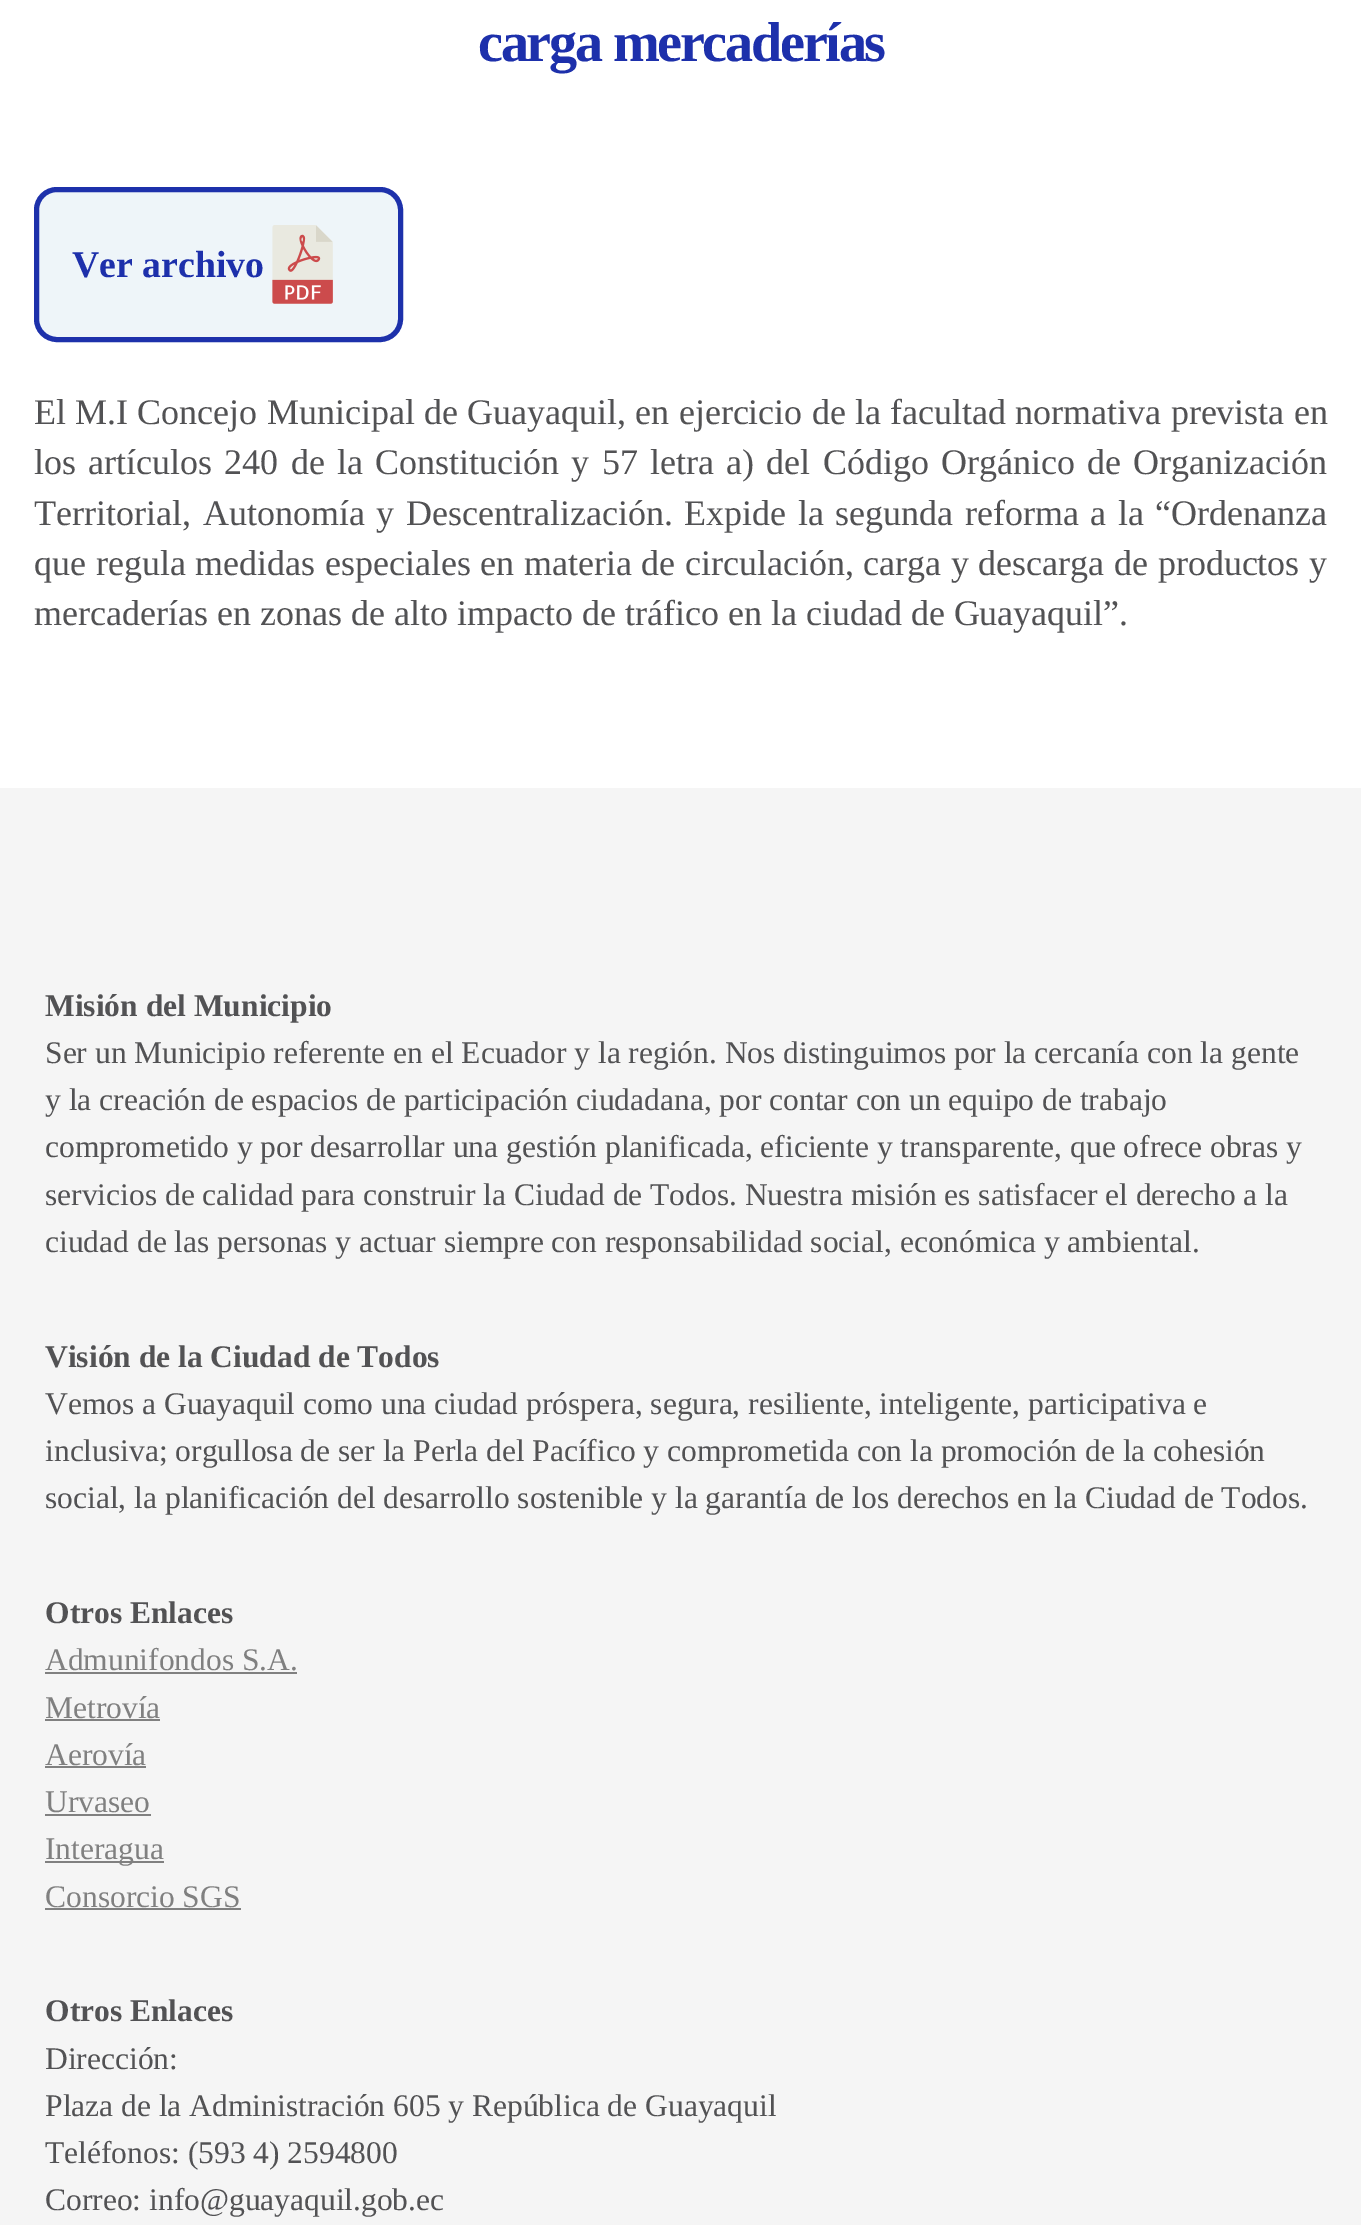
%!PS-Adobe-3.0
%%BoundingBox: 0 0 1361 2225
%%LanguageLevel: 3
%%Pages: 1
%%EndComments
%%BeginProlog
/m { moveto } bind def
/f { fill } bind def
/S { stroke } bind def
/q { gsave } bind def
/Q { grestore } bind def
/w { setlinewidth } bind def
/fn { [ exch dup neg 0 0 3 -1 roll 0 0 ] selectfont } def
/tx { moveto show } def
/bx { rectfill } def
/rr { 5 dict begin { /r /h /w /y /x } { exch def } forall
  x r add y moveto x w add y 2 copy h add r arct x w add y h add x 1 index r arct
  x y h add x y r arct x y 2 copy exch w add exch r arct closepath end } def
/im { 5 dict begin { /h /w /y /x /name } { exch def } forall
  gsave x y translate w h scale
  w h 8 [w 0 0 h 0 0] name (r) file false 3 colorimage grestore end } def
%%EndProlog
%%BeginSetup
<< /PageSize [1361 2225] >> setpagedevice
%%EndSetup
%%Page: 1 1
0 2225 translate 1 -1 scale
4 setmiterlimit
1 setgray
0 0 1361 2225 bx
/LiberationSerif-Bold 56.25 fn
0.114 0.188 0.671 setrgbcolor
478 61 m -2.3 0 (carga mercaderías) ashow
0.933 0.961 0.976 setrgbcolor
36.5 189.5 364 150 20.5 rr q f Q
0.114 0.192 0.671 setrgbcolor
5 w
S
/LiberationSerif-Bold 37.75 fn
0.114 0.188 0.671 setrgbcolor
(Ver archivo) 72 277 tx
(image0.raw) 272 225 61 79 im
/LiberationSerif-Regular 36 fn
0.322 0.322 0.329 setrgbcolor
34 424 m 0.25 0 32 (El M.I Concejo Municipal de Guayaquil, en ejercicio de la facultad normativa prevista en) widthshow
34 474 m 3.25 0 32 (los artículos 240 de la Constitución y 57 letra a\) del Código Orgánico de Organización) widthshow
34 525 m 2.6 0 32 (Territorial, Autonomía y Descentralización. Expide la segunda reforma a la “Ordenanza) widthshow
34 575 m 0.6 0 32 (que regula medidas especiales en materia de circulación, carga y descarga de productos y) widthshow
(mercaderías en zonas de alto impacto de tráfico en la ciudad de Guayaquil”.) 34 625 tx
0.961 setgray
0 788 1361 1437 bx
/LiberationSerif-Bold 31.5 fn
0.322 0.322 0.329 setrgbcolor
(Misión del Municipio) 45 1016 tx
/LiberationSerif-Regular 31.5 fn
(Ser un Municipio referente en el Ecuador y la región. Nos distinguimos por la cercanía con la gente) 45 1063 tx
(y la creación de espacios de participación ciudadana, por contar con un equipo de trabajo) 45 1110 tx
(comprometido y por desarrollar una gestión planificada, eficiente y transparente, que ofrece obras y) 45 1157 tx
(servicios de calidad para construir la Ciudad de Todos. Nuestra misión es satisfacer el derecho a la) 45 1205 tx
(ciudad de las personas y actuar siempre con responsabilidad social, económica y ambiental.) 45 1252 tx
/LiberationSerif-Bold 31.5 fn
(Visión de la Ciudad de Todos) 45 1367 tx
/LiberationSerif-Regular 31.5 fn
(Vemos a Guayaquil como una ciudad próspera, segura, resiliente, inteligente, participativa e) 45 1414 tx
(inclusiva; orgullosa de ser la Perla del Pacífico y comprometida con la promoción de la cohesión) 45 1461 tx
(social, la planificación del desarrollo sostenible y la garantía de los derechos en la Ciudad de Todos.) 45 1508 tx
/LiberationSerif-Bold 31.5 fn
(Otros Enlaces) 45 1623 tx
/LiberationSerif-Regular 31.5 fn
0.502 setgray
(Admunifondos S.A.) 45 1670 tx
45 1672 252 2 bx
(Metrovía) 45 1718 tx
45 1719 115 2 bx
(Aerovía) 45 1765 tx
45 1766 101 2 bx
(Urvaseo) 45 1812 tx
45 1814 106 2 bx
45 1861 119 2 bx
(Interagua) 45 1859 tx
(Consorcio SGS) 45 1907 tx
45 1908 196 2 bx
/LiberationSerif-Bold 31.5 fn
0.322 0.322 0.329 setrgbcolor
(Otros Enlaces) 45 2021 tx
/LiberationSerif-Regular 31.5 fn
(Dirección:) 45 2069 tx
(Plaza de la Administración 605 y República de Guayaquil) 45 2116 tx
(Teléfonos: \(593 4\) 2594800) 45 2163 tx
(Correo: info@guayaquil.gob.ec) 45 2210 tx
showpage
%%EOF
